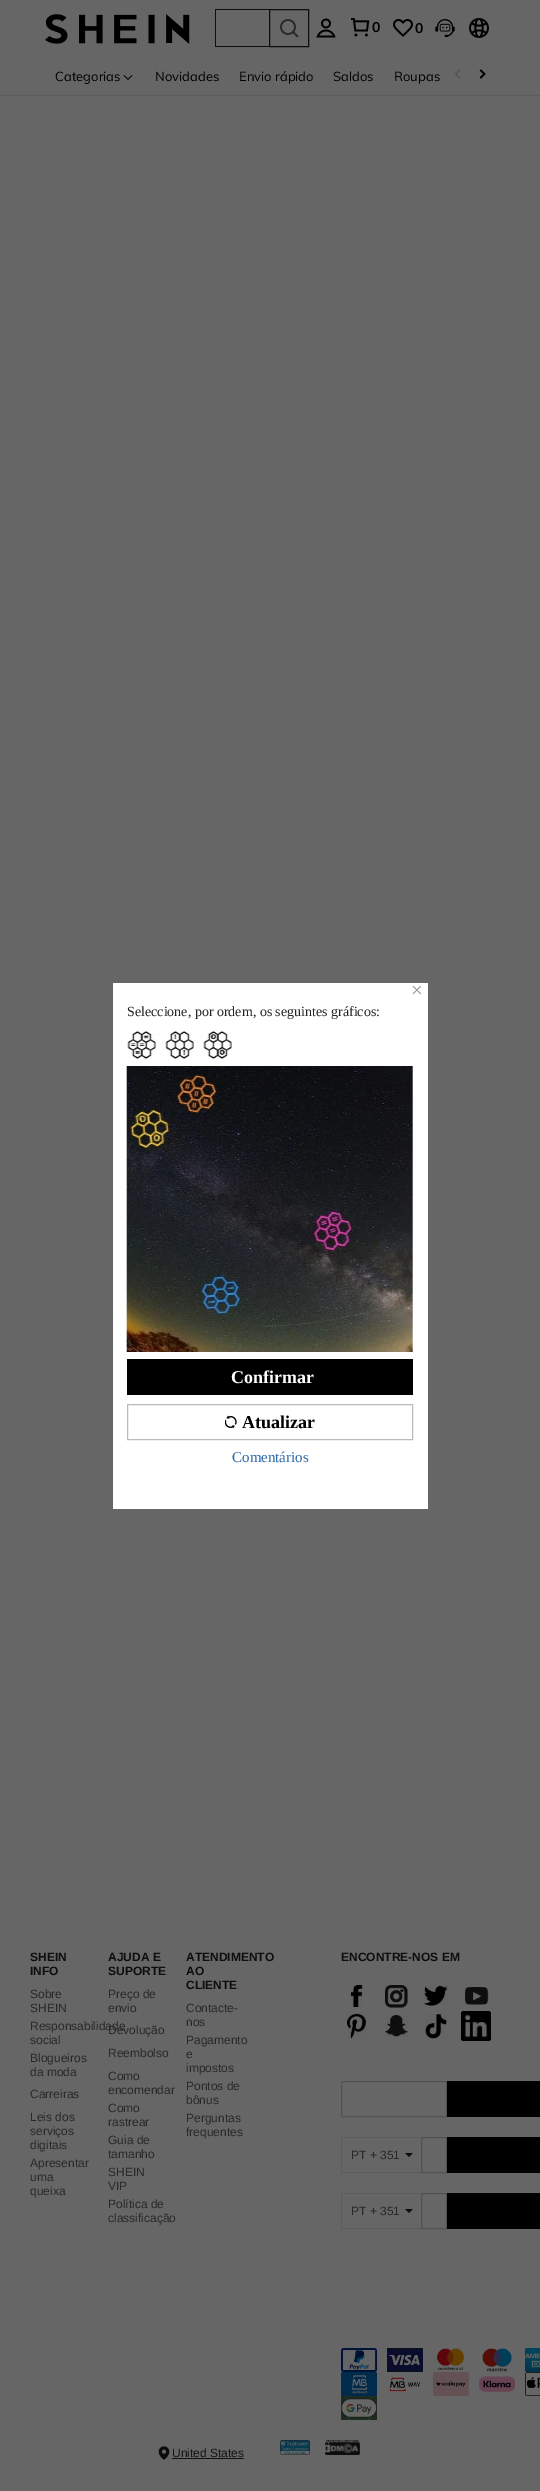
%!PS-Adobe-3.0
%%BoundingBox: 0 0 540 2491
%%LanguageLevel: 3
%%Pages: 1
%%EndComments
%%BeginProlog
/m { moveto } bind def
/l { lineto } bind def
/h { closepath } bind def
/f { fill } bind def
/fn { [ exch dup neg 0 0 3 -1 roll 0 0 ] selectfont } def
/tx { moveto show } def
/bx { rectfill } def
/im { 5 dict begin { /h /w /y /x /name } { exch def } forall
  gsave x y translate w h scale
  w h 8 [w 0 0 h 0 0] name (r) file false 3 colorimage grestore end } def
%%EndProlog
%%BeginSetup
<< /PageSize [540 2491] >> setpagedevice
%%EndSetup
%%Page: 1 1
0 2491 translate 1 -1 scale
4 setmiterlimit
0.4 setgray
0 0 540 2491 bx
(image0.raw) 45 14 145 30 im
0.055 setgray
215 9 54 1 bx
215 46 54 1 bx
215 9 1 38 bx
269.5 9.5 39 37 rectstroke
(image1.raw) 280 19 19 19 im
(image2.raw) 316 18 20 20 im
(image3.raw) 351 18 19 19 im
/Muli-Bold 14 fn
0 setgray
(0) 372 32 tx
(image4.raw) 393 19 20 18 im
(0) 415 33 tx
(image5.raw) 435 19 20 19 im
(image6.raw) 469 18 20 20 im
0.361 setgray
0 95 540 1 bx
/Muli-Regular 13 fn
0 setgray
(Categorias) 55 81 tx
(image7.raw) 123 75 10 5 im
(Novidades) 155 81 tx
(Envio rápido) 239 81 tx
(Saldos) 333 81 tx
(Roupas) 394 81 tx
(image8.raw) 454 69 7 10 im
(image9.raw) 479 69 7 10 im
/LiberationSans-Bold 12 fn
0.055 setgray
(SHEIN) 30 1961 tx
(INFO) 30 1975 tx
/LiberationSans-Regular 12 fn
0.161 setgray
(Sobre) 30 1998 tx
(SHEIN) 30 2012 tx
(Responsabilidade) 30 2030 tx
(social) 30 2044 tx
(Blogueiros) 30 2062 tx
(da moda) 30 2076 tx
(Carreiras) 30 2098 tx
(Leis dos) 30 2121 tx
(serviços) 30 2135 tx
(digitais) 30 2149 tx
(Apresentar) 30 2167 tx
(uma) 30 2181 tx
(queixa) 30 2195 tx
/LiberationSans-Bold 12 fn
0.055 setgray
(AJUDA E) 108 1961 tx
(SUPORTE) 108 1975 tx
/LiberationSans-Regular 12 fn
0.161 setgray
(Preço de) 108 1998 tx
(envio) 108 2012 tx
(Devolução) 108 2034 tx
(Reembolso) 108 2057 tx
(Como) 108 2080 tx
(encomendar) 108 2094 tx
(Como) 108 2112 tx
(rastrear) 108 2126 tx
(Guia de) 108 2144 tx
(tamanho) 108 2158 tx
(SHEIN) 108 2176 tx
(VIP) 108 2190 tx
(Política de) 108 2208 tx
(classificação) 108 2222 tx
/LiberationSans-Bold 12 fn
0.055 setgray
(ATENDIMENTO) 186 1961 tx
(AO) 186 1975 tx
(CLIENTE) 186 1989 tx
/LiberationSans-Regular 12 fn
0.161 setgray
(Contacte-) 186 2012 tx
(nos) 186 2026 tx
(Pagamento) 186 2044 tx
(e) 186 2058 tx
(impostos) 186 2072 tx
(Pontos de) 186 2090 tx
(bônus) 186 2104 tx
(Perguntas) 186 2122 tx
(frequentes) 186 2136 tx
/LiberationSans-Bold 12 fn
0.055 setgray
(ENCONTRE-NOS EM) 341 1961 tx
(image10.raw) 351 1985 12 22 im
(image11.raw) 385 1985 23 23 im
(image12.raw) 423 1985 25 21 im
(image13.raw) 465 1987 24 18 im
(image14.raw) 347 2013 20 26 im
(image15.raw) 385 2015 23 22 im
(image16.raw) 425 2014 22 25 im
(image17.raw) 461 2011 30 30 im
0.322 setgray
341.5 2081.5 105 35 rectstroke
0 setgray
447 2081 93 36 bx
0.361 setgray
341 2137 80 1 bx
341 2172 80 1 bx
341 2137 1 36 bx
/LiberationSans-Regular 12 fn
0.161 setgray
(PT + 351) 351 2159 tx
0.055 setgray
405 2153 m 413 2153 l 409 2157 l h f
0.322 setgray
421.5 2137.5 25 35 rectstroke
0 setgray
447 2137 93 36 bx
0.361 setgray
341 2193 80 1 bx
341 2228 80 1 bx
341 2193 1 36 bx
0.161 setgray
(PT + 351) 351 2215 tx
0.055 setgray
405 2209 m 413 2209 l 409 2213 l h f
0.322 setgray
421.5 2193.5 25 35 rectstroke
0 setgray
447 2193 93 36 bx
(image18.raw) 341 2348 36 24 im
(image19.raw) 387 2348 36 24 im
(image20.raw) 433 2348 36 24 im
(image21.raw) 479 2348 36 24 im
(image22.raw) 525 2348 15 24 im
(image23.raw) 341 2372 36 24 im
(image24.raw) 387 2372 36 24 im
(image25.raw) 433 2372 36 24 im
(image26.raw) 479 2376 36 16 im
(image27.raw) 525 2372 15 24 im
(image28.raw) 341 2396 36 24 im
(image29.raw) 158 2446 12 14 im
0.078 setgray
(United States) 172 2457 tx
172 2458 72 1 bx
(image30.raw) 280 2440 30 15 im
(image31.raw) 325 2440 35 15 im
1 setgray
113 983 315 526 bx
/LiberationSerif-Regular 21 fn
0.584 setgray
(×) 411 997 tx
/LiberationSerif-Regular 14 fn
0.133 setgray
(Seleccione, por ordem, os seguintes gráficos:) 127 1016 tx
(image32.raw) 127 1031 105 29 im
(image33.raw) 126 1066 287 286 im
0 setgray
127 1359 286 36 bx
/LiberationSerif-Bold 18 fn
1 setgray
(Confirmar) 231 1383 tx
0.733 setgray
127.5 1404.5 285 35 rectstroke
(image34.raw) 225 1415 12 14 im
0 setgray
(Atualizar) 242 1428 tx
/LiberationSerif-Regular 15 fn
0.176 0.408 0.659 setrgbcolor
(Comentários) 232 1462 tx
showpage
%%EOF
